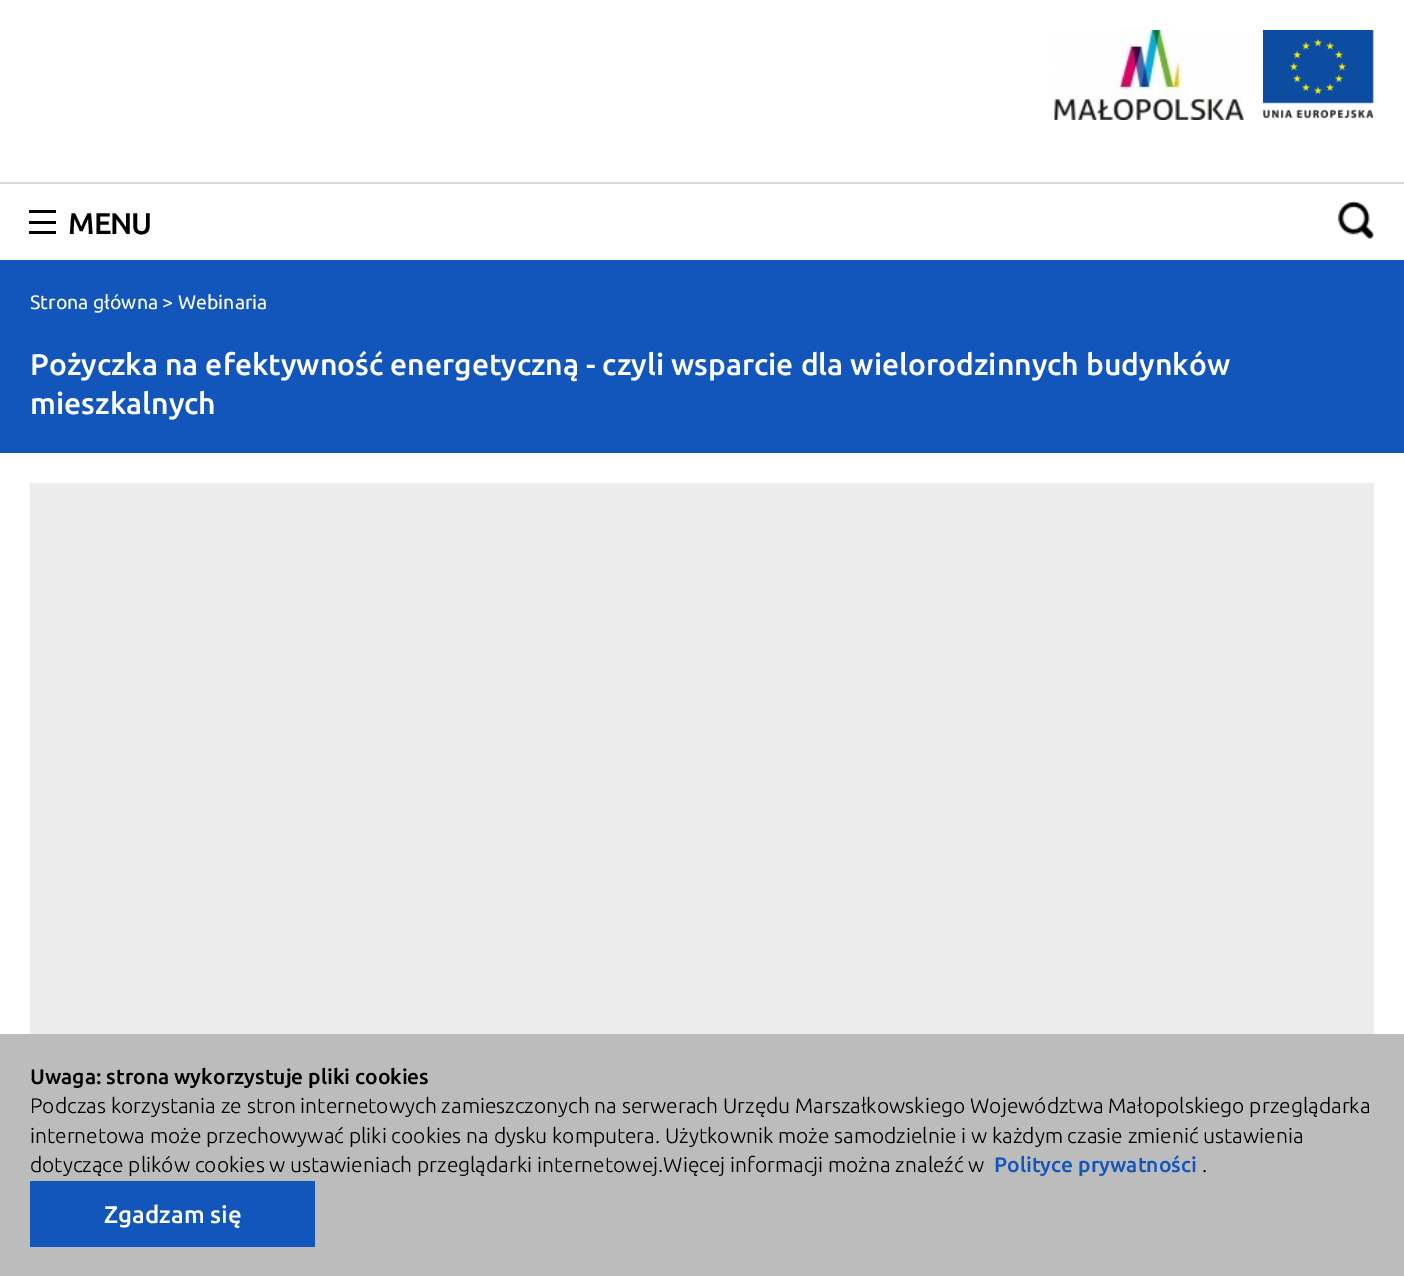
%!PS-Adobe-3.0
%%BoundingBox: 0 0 1404 1276
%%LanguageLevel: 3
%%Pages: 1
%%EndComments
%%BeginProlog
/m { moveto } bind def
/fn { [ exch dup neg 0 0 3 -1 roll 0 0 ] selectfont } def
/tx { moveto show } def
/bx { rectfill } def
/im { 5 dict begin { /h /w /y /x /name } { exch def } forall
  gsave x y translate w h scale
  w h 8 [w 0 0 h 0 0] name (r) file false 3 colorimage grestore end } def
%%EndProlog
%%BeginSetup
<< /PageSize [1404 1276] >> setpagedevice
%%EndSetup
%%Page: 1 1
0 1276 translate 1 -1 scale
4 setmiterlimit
1 setgray
0 0 1404 1276 bx
(image0.raw) 1054 30 190 90 im
(image1.raw) 1263 30 111 88 im
0.855 setgray
0 182 1404 2 bx
0 setgray
29 231 27 3 bx
29 221 27 3 bx
29 210 27 3 bx
/Ubuntu-Medium 30 fn
68 234 m -1 0 (MENU) ashow
(image2.raw) 1338 201 36 38 im
0.071 0.337 0.733 setrgbcolor
0 260 1404 193 bx
/Ubuntu-Regular 19.5 fn
1 setgray
(Strona główna > Webinaria) 30 309 tx
/Ubuntu-Medium 30 fn
(Pożyczka na efektywność energetyczną - czyli wsparcie dla wielorodzinnych budynków) 30 375 tx
(mieszkalnych) 30 414 tx
0.925 setgray
30 483 1344 551 bx
0.741 0.737 0.737 setrgbcolor
0 1034 1404 242 bx
/Ubuntu-Medium 21 fn
0 setgray
(Uwaga: strona wykorzystuje pliki cookies) 30 1084 tx
/Ubuntu-Light 21 fn
(Podczas korzystania ze stron internetowych zamieszczonych na serwerach Urzędu Marszałkowskiego Województwa Małopolskiego przeglądarka) 30 1113 tx
(internetowa może przechowywać pliki cookies na dysku komputera. Użytkownik może samodzielnie i w każdym czasie zmienić ustawienia) 30 1143 tx
(dotyczące plików cookies w ustawieniach przeglądarki internetowej.Więcej informacji można znaleźć w) 30 1172 tx
/Ubuntu-Medium 21 fn
0.071 0.337 0.733 setrgbcolor
(Polityce prywatności) 994 1172 tx
/Ubuntu-Light 21 fn
0 setgray
(.) 1202 1172 tx
0.071 0.337 0.733 setrgbcolor
30 1181 285 66 bx
/Ubuntu-Medium 24 fn
1 setgray
(Zgadzam się) 104 1223 tx
showpage
%%EOF
